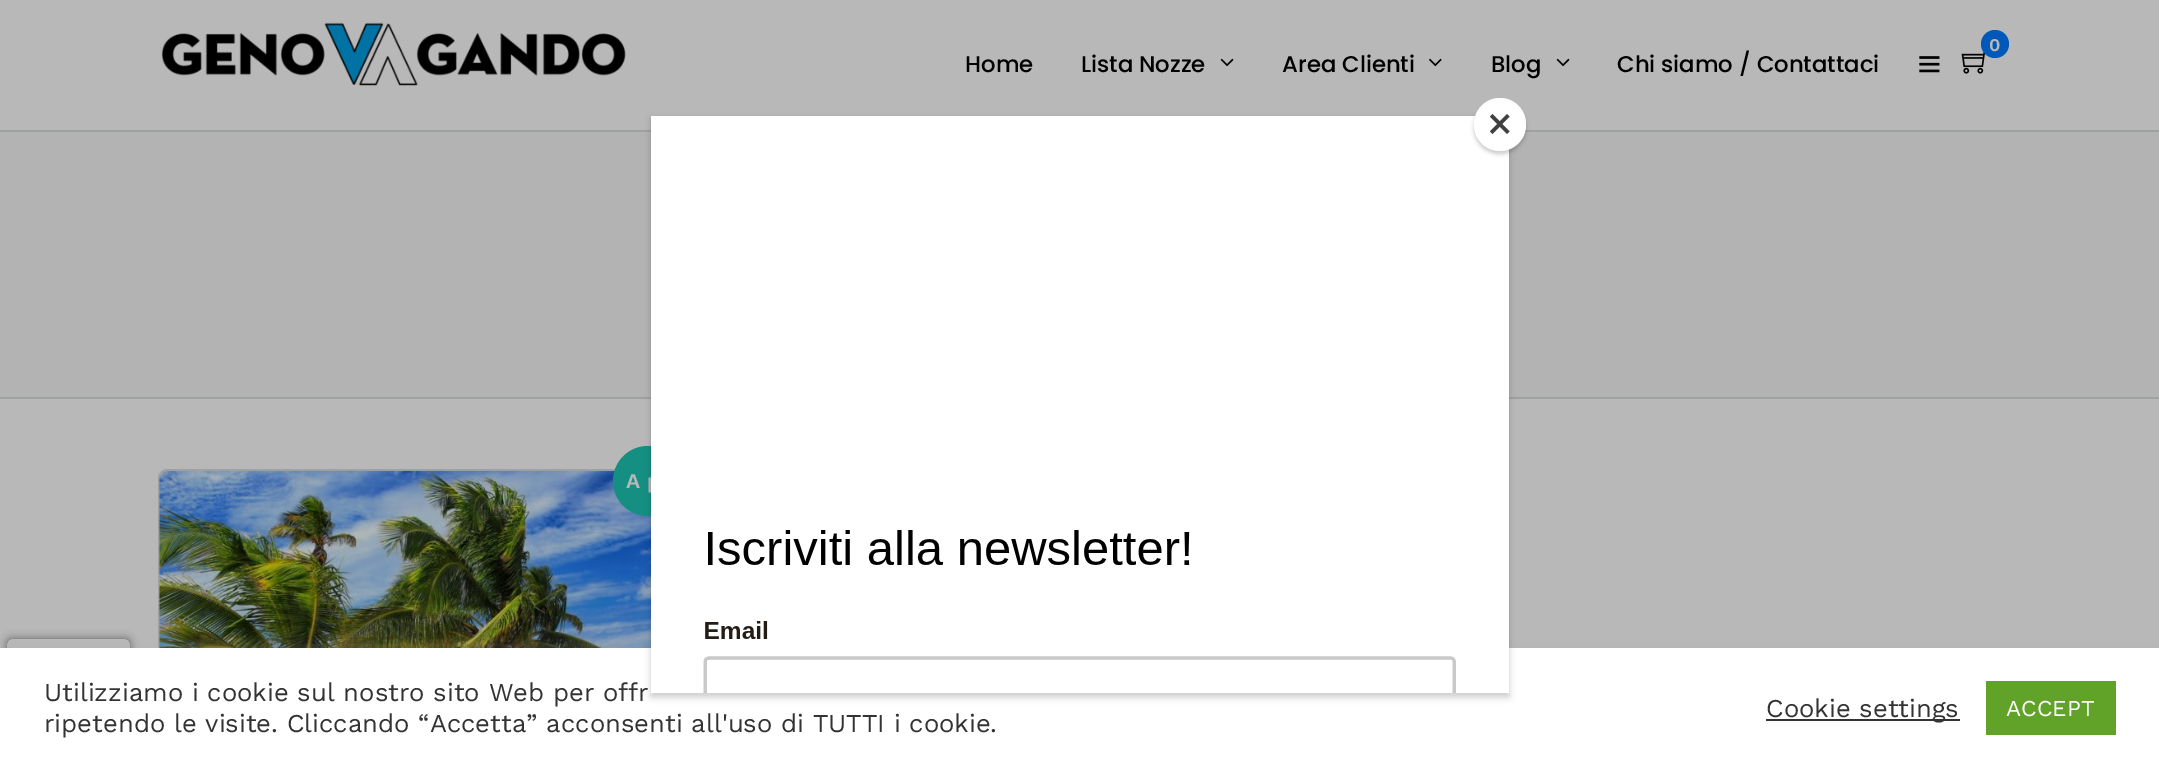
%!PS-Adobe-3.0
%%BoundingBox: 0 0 2159 768
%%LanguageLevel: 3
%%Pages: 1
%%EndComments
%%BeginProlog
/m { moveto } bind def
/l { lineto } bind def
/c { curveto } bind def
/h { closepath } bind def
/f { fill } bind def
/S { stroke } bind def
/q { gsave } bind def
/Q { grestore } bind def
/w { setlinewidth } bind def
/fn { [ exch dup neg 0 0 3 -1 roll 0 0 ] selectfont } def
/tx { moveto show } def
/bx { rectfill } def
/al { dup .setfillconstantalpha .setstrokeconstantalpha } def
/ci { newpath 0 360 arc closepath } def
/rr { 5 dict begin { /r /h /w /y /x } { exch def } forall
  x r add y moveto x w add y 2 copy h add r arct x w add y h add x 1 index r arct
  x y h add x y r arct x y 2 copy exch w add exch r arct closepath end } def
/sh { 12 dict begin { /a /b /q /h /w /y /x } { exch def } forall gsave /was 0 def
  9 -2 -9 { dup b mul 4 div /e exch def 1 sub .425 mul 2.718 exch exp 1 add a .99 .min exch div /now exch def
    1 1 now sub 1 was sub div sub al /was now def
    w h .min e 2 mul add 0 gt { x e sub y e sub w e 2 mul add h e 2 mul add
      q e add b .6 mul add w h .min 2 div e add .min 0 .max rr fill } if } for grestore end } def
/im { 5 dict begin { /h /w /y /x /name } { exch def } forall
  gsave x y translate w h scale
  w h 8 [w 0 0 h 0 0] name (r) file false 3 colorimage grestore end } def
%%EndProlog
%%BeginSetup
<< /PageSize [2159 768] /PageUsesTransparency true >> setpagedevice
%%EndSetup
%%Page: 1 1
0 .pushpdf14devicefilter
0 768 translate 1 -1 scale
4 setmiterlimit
0.722 setgray
0 0 2159 768 bx
0.62 0.631 0.631 setrgbcolor
0 130 2159 2 bx
(image0.raw) 161 22 465 64 im
(image1.raw) 1961 51 24 23 im
0 0.345 0.722 setrgbcolor
1995 44 14 ci f
/WorkSans-SemiBold 18 fn
0.722 setgray
(0) 1989 51 tx
(image2.raw) 1919 56 21 17 im
/Poppins-Medium 22.75 fn
0 setgray
(Home) 965 72 tx
(Lista Nozze) 1081 72 tx
(image3.raw) 1220 58 14 9 im
(Area Clienti) 1282 72 tx
(image4.raw) 1429 58 13 9 im
(Blog) 1491 72 tx
(image3.raw) 1556 58 14 9 im
(Chi siamo / Contattaci) 1617 72 tx
0.702 setgray
0 132 2159 265 bx
0.62 0.631 0.631 setrgbcolor
0 397 2159 2 bx
2 w
159 470 577 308 8 rr S
(image5.raw) 159 470 492 178 im
0.086 0.561 0.514 setrgbcolor
613 446 147 70 35 rr f
/WorkSans-SemiBold 21 fn
0.722 setgray
(A p) 626 488 tx
q
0 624 m 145 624 l 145 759 l 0 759 l h 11 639 m 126 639 l 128 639 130 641 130 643 c 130 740 l 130 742 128 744 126 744 c 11 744 l 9 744 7 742 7 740 c 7 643 l 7 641 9 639 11 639 c h eoclip newpath
0.361 setgray
7 639 123 105 4 4.5 1 sh
Q
0.675 0.671 0.671 setrgbcolor
0 646 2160 121 0 9 0.3 sh
1 setgray
0 648 2159 120 bx
0 setgray
651 119 858 578 0 3.5 0.2 sh
(image6.raw) 651 116 858 577 im
1474 102 52 52 26 2 0.2 sh
1 setgray
1474 98 52 53 26 rr f
0.255 setgray
1507 114 m 1509.5 116.5 l 1492.5 134 l 1490 131.5 l h f
1490 116.5 m 1492.5 114 l 1509.5 131.5 l 1507 134 l h f
/WorkSans-Regular 25.65 fn
0.2 setgray
(Utilizziamo i cookie sul nostro sito Web per offr) 44 701 tx
(ripetendo le visite. Cliccando “Accetta” acconsenti all'uso di TUTTI i cookie.) 44 732 tx
1766 719 194 2 bx
(Cookie settings) 1766 717 tx
0.38 0.635 0.161 setrgbcolor
1986 681 130 54 bx
/WorkSans-Regular 22.75 fn
1 setgray
(ACCEPT) 2006 716 tx
.poppdf14devicefilter showpage
%%EOF
